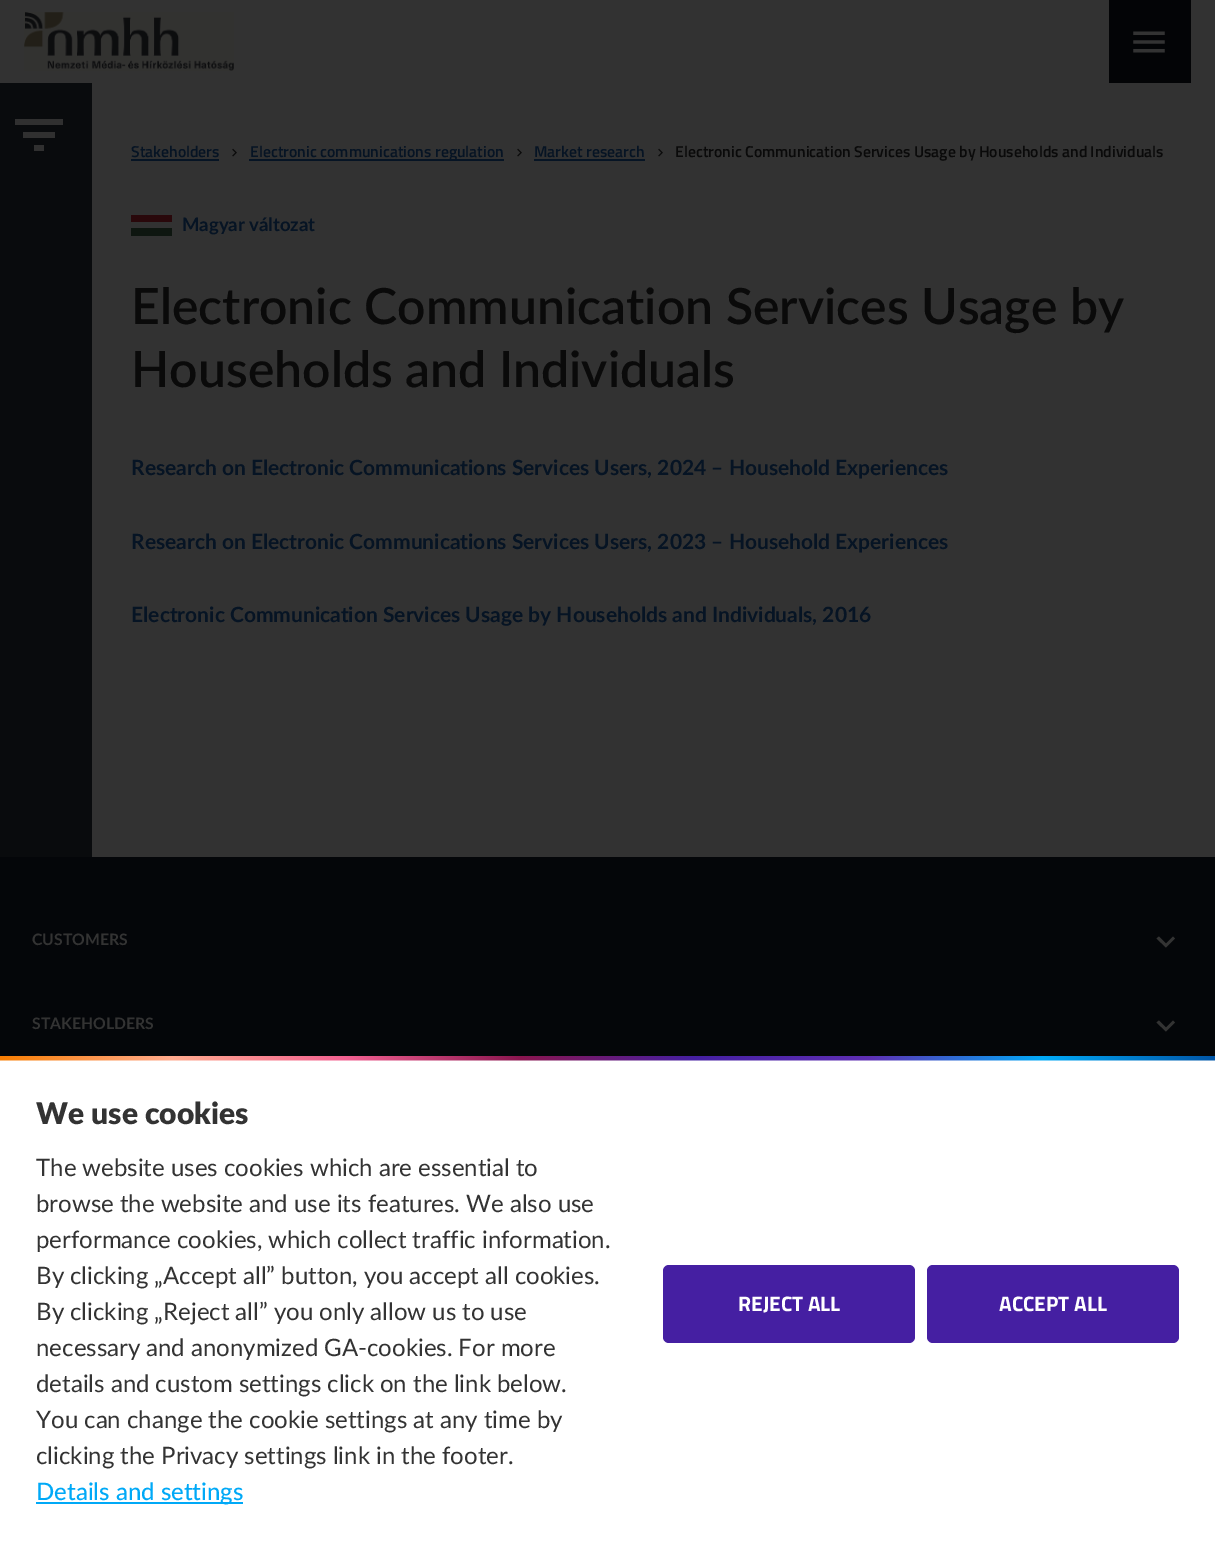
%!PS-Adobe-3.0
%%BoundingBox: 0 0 1215 1546
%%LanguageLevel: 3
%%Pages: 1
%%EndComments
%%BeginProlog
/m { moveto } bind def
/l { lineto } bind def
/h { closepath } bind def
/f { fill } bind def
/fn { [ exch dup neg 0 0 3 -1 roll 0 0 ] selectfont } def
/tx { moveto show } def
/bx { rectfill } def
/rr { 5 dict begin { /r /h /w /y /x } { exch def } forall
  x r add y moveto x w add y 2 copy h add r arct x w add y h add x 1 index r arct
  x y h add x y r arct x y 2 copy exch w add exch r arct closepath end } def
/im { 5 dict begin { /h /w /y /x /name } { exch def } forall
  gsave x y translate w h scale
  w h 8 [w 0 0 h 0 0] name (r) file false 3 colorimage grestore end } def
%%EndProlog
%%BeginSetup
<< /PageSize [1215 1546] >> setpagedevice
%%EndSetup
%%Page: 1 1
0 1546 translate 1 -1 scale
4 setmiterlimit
0.196 setgray
0 0 1215 1546 bx
(image0.raw) 24 12 210 59 im
0.012 0.016 0.024 setrgbcolor
1109 0 82 83 bx
(image1.raw) 1133 31 32 22 im
0.035 0.043 0.051 setrgbcolor
0 83 92 774 bx
0.188 setgray
23 138 m 23 132 l 55 132 l 55 138 l h 15 119 m 63 119 l 63 125 l 15 125 l h 34 151 m 34 145 l 44 145 l 44 151 l h f
/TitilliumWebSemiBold-SemiBold 15.75 fn
0.024 0.078 0.141 setrgbcolor
(Stakeholders) 131 157 tx
131 159 88 2 bx
(image2.raw) 232 148 5 9 im
249 159 255 2 bx
(Electronic communications regulation) 250 157 tx
(image2.raw) 517 148 5 9 im
(Market research) 534 157 tx
534 159 111 2 bx
(image2.raw) 658 148 5 9 im
0.039 setgray
(Electronic Communication Services Usage by Households and Individuals) 675 157 tx
0.055 0.086 0.063 setrgbcolor
131 228 41 8 bx
0.161 0.031 0.043 setrgbcolor
131 215 41 7 bx
/Lato-Bold 18.5 fn
0.024 0.078 0.141 setrgbcolor
(Magyar változat) 182 231 tx
/Lato-SemiBold 49.9 fn
0.039 setgray
(Electronic Communication Services Usage by) 131 324 tx
(Households and Individuals) 131 387 tx
/Lato-Bold 21 fn
0.024 0.078 0.141 setrgbcolor
(Research on Electronic Communications Services Users, 2024 – Household Experiences) 131 475 tx
(Research on Electronic Communications Services Users, 2023 – Household Experiences) 131 549 tx
(Electronic Communication Services Usage by Households and Individuals, 2016) 131 622 tx
0.016 0.024 0.035 setrgbcolor
0 857 1215 199 bx
/Lato-Bold 15.75 fn
0.2 setgray
(CUSTOMERS) 32 945 tx
1159 936.5 m 1166 943.5 l 1173 936.5 l 1175 938.5 l 1166 947.5 l 1156.5 938.5 l h f
(STAKEHOLDERS) 32 1029 tx
1159 1020.5 m 1166 1027.5 l 1173 1020.5 l 1175 1022.5 l 1166 1031.5 l 1156.5 1022.5 l h f
1 setgray
0 1060 1215 486 bx
(image3.raw) 0 1056 1215 5 im
/Lato-Black 30 fn
0.2 setgray
(We use cookies) 36 1124 tx
/Lato-Regular 24 fn
(The website uses cookies which are essential to) 36 1176 tx
(browse the website and use its features. We also use) 36 1212 tx
(performance cookies, which collect traffic information.) 36 1248 tx
(By clicking „Accept all” button, you accept all cookies.) 36 1284 tx
(By clicking „Reject all” you only allow us to use) 36 1320 tx
(necessary and anonymized GA-cookies. For more) 36 1356 tx
(details and custom settings click on the link below.) 36 1392 tx
(You can change the cookie settings at any time by) 36 1428 tx
(clicking the Privacy settings link in the footer.) 36 1464 tx
0 0.663 0.969 setrgbcolor
36 1502 207 2 bx
/Lato-Medium 24 fn
(Details and settings) 36 1500 tx
0.271 0.122 0.635 setrgbcolor
663 1265 252 78 6 rr f
/TitilliumWeb-Bold 21 fn
1 setgray
(REJECT ALL) 738 1311 tx
0.271 0.122 0.635 setrgbcolor
927 1265 252 78 6 rr f
1 setgray
(ACCEPT ALL) 999 1311 tx
showpage
%%EOF
